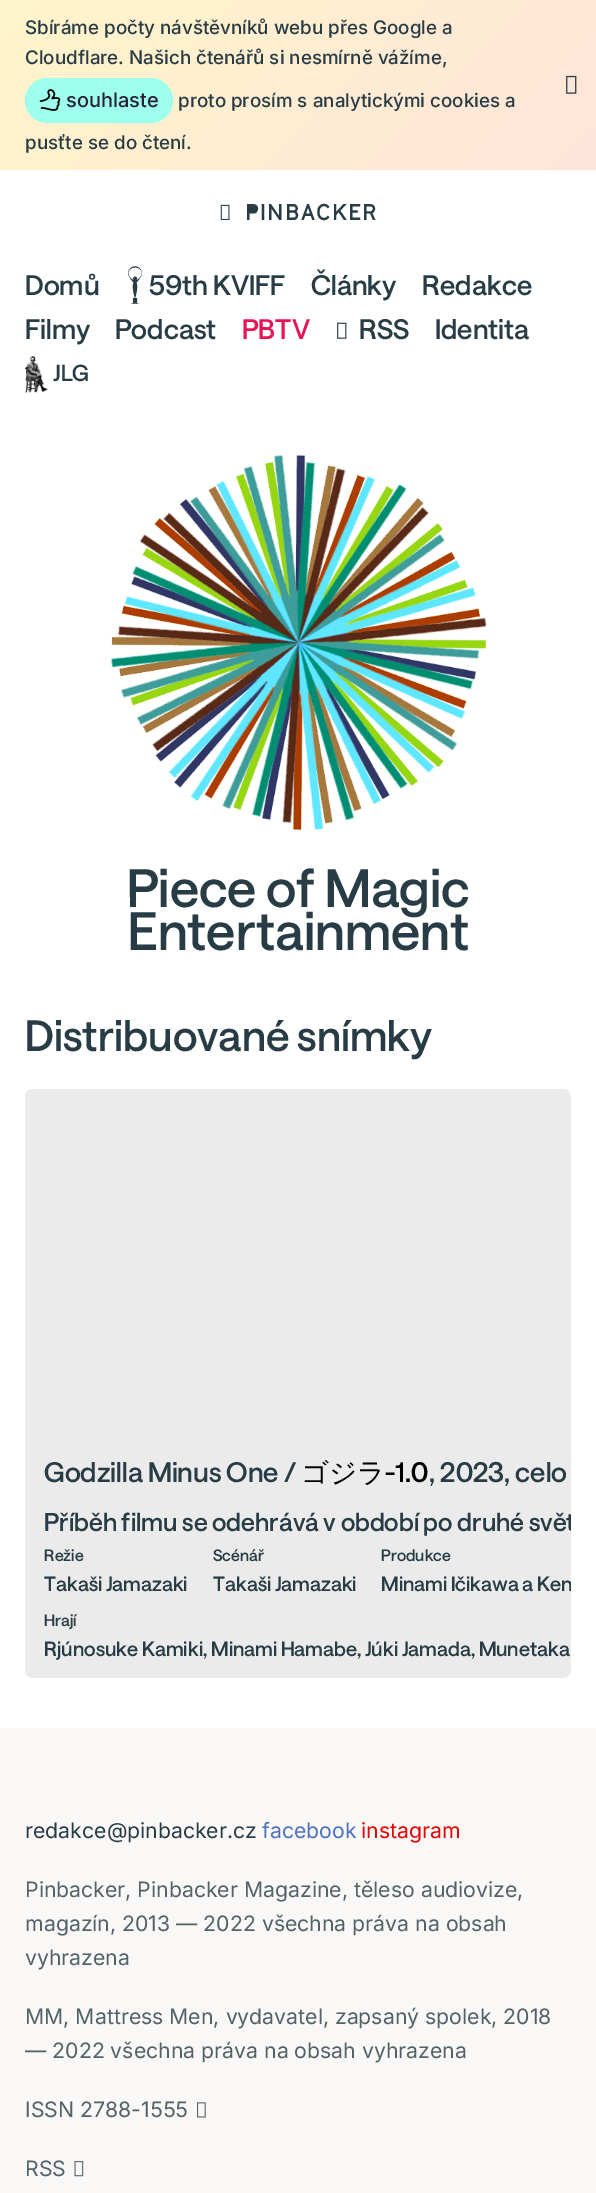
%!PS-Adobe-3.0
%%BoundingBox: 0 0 596 2193
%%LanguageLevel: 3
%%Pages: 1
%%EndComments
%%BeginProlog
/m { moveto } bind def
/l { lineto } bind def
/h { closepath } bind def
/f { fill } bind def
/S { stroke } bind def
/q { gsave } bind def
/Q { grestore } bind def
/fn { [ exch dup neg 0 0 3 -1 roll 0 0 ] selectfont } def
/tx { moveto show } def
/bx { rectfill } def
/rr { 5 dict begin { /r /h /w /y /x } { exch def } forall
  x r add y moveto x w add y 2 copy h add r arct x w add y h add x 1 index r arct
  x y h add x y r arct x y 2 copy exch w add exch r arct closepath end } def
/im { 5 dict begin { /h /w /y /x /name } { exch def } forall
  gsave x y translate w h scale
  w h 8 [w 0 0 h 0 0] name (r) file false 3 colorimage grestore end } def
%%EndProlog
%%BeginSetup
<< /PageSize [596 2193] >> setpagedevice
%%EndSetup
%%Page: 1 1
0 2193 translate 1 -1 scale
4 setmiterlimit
1 setgray
0 0 596 2193 bx
q 0 0 m 596 0 l 596 170 l 0 170 l h clip newpath
<< /ShadingType 2 /ColorSpace /DeviceRGB /Coords [107 -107 490 277] /Extend [true true] /Function << /FunctionType 2 /Domain [0 1] /C0 [1 0.961 0.792] /C1 [1 0.898 0.855] /N 1 >> >> shfill Q
/Inter-Medium 18.75 fn
0.157 0.235 0.275 setrgbcolor
(Sbíráme počty návštěvníků webu přes Google a) 25 34 tx
(Cloudflare. Našich čtenářů si nesmírně vážíme,) 25 64 tx
(image0.raw) 566 75 11 19 im
0.616 1 0.925 setrgbcolor
25 78 148 45 22.5 rr f
(image1.raw) 39 89 22 22 im
25.5 78.5 147 44 22 rr S
/Inter-Medium 20 fn
0.157 0.129 0.22 setrgbcolor
(souhlaste) 66 107 tx
/Inter-Medium 18.75 fn
0.157 0.235 0.275 setrgbcolor
(proto prosím s analytickými cookies a) 178 107 tx
(pusťte se do čtení.) 25 149 tx
(image2.raw) 220 204 10 16 im
/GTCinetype-Bold 22.5 fn
245 220 m 1.25 0 (PINBACKER) ashow
/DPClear-Medium 27.5 fn
(Domů) 25 295 tx
(image3.raw) 128 266 14 38 im
(59th KVIFF) 149 295 tx
(Články) 311 295 tx
(Redakce) 422 295 tx
(Filmy) 25 339 tx
(Podcast) 115 339 tx
0.906 0.082 0.337 setrgbcolor
(PBTV) 242 339 tx
(image4.raw) 337 322 10 17 im
0.157 0.235 0.275 setrgbcolor
(RSS) 359 339 tx
(Identita) 435 339 tx
(image5.raw) 25 356 23 37 im
/DPClear-Medium 22.5 fn
(JLG) 53 381 tx
(image7.raw) 111 455 376 375 im
(image6.raw) 110 454 377 377 im
/DPClear-Medium 52.5 fn
(Piece of Magic) 127 907 tx
(Entertainment) 128 950 tx
/DPClear-Medium 42.5 fn
(Distribuované snímky) 25 1051 tx
0.922 setgray
25 1089 546 589 8 rr f
/DPClear-Medium 27.5 fn
0.157 0.235 0.275 setrgbcolor
(Godzilla Minus One /) 44 1482 tx
/WenQuanYiZenHei-Medium 27.5 fn
0 setgray
(ゴジラ) 301 1482 tx
/DPClear-Medium 27.5 fn
(-1.0) 385 1482 tx
0.157 0.235 0.275 setrgbcolor
(, 2023, celo) 429 1482 tx
q
25 1089 546 589 8 rr clip newpath
/DPClear-Medium 25 fn
(Příběh filmu se odehrává v období po druhé svět) 44 1531 tx
Q
/DPClear-Medium 16 fn
(Režie) 44 1561 tx
/DPClear-Medium 20 fn
(Takaši Jamazaki) 44 1591 tx
/DPClear-Medium 16 fn
(Scénář) 213 1561 tx
/DPClear-Medium 20 fn
(Takaši Jamazaki) 213 1591 tx
/DPClear-Medium 16 fn
(Produkce) 381 1561 tx
q
25 1089 546 589 8 rr clip newpath
/DPClear-Medium 20 fn
(Minami Ičikawa a Ken) 381 1591 tx
Q
(Hrají) 44 1626 tx
/DPClear-Medium 20 fn
(Rjúnosuke Kamiki, Minami Hamabe, Júki Jamada, Munetaka) 44 1656 tx
0.98 0.973 0.969 setrgbcolor
0 1728 596 465 bx
/Inter-Regular 21.25 fn
0.157 0.235 0.275 setrgbcolor
(redakce@pinbacker.cz) 25 1838 tx
0.302 0.443 0.741 setrgbcolor
(facebook) 262 1838 tx
0.902 0 0 setrgbcolor
(instagram) 361 1838 tx
0.322 0.384 0.412 setrgbcolor
(Pinbacker, Pinbacker Magazine, těleso audiovize,) 25 1897 tx
(magazín, 2013 — 2022 všechna práva na obsah) 25 1931 tx
(vyhrazena) 25 1965 tx
(MM, Mattress Men, vydavatel, zapsaný spolek, 2018) 25 2024 tx
(— 2022 všechna práva na obsah vyhrazena) 25 2058 tx
(ISSN 2788-1555) 25 2117 tx
(image8.raw) 197 2102 9 16 im
(RSS) 25 2176 tx
(image9.raw) 74 2161 10 16 im
showpage
%%EOF
